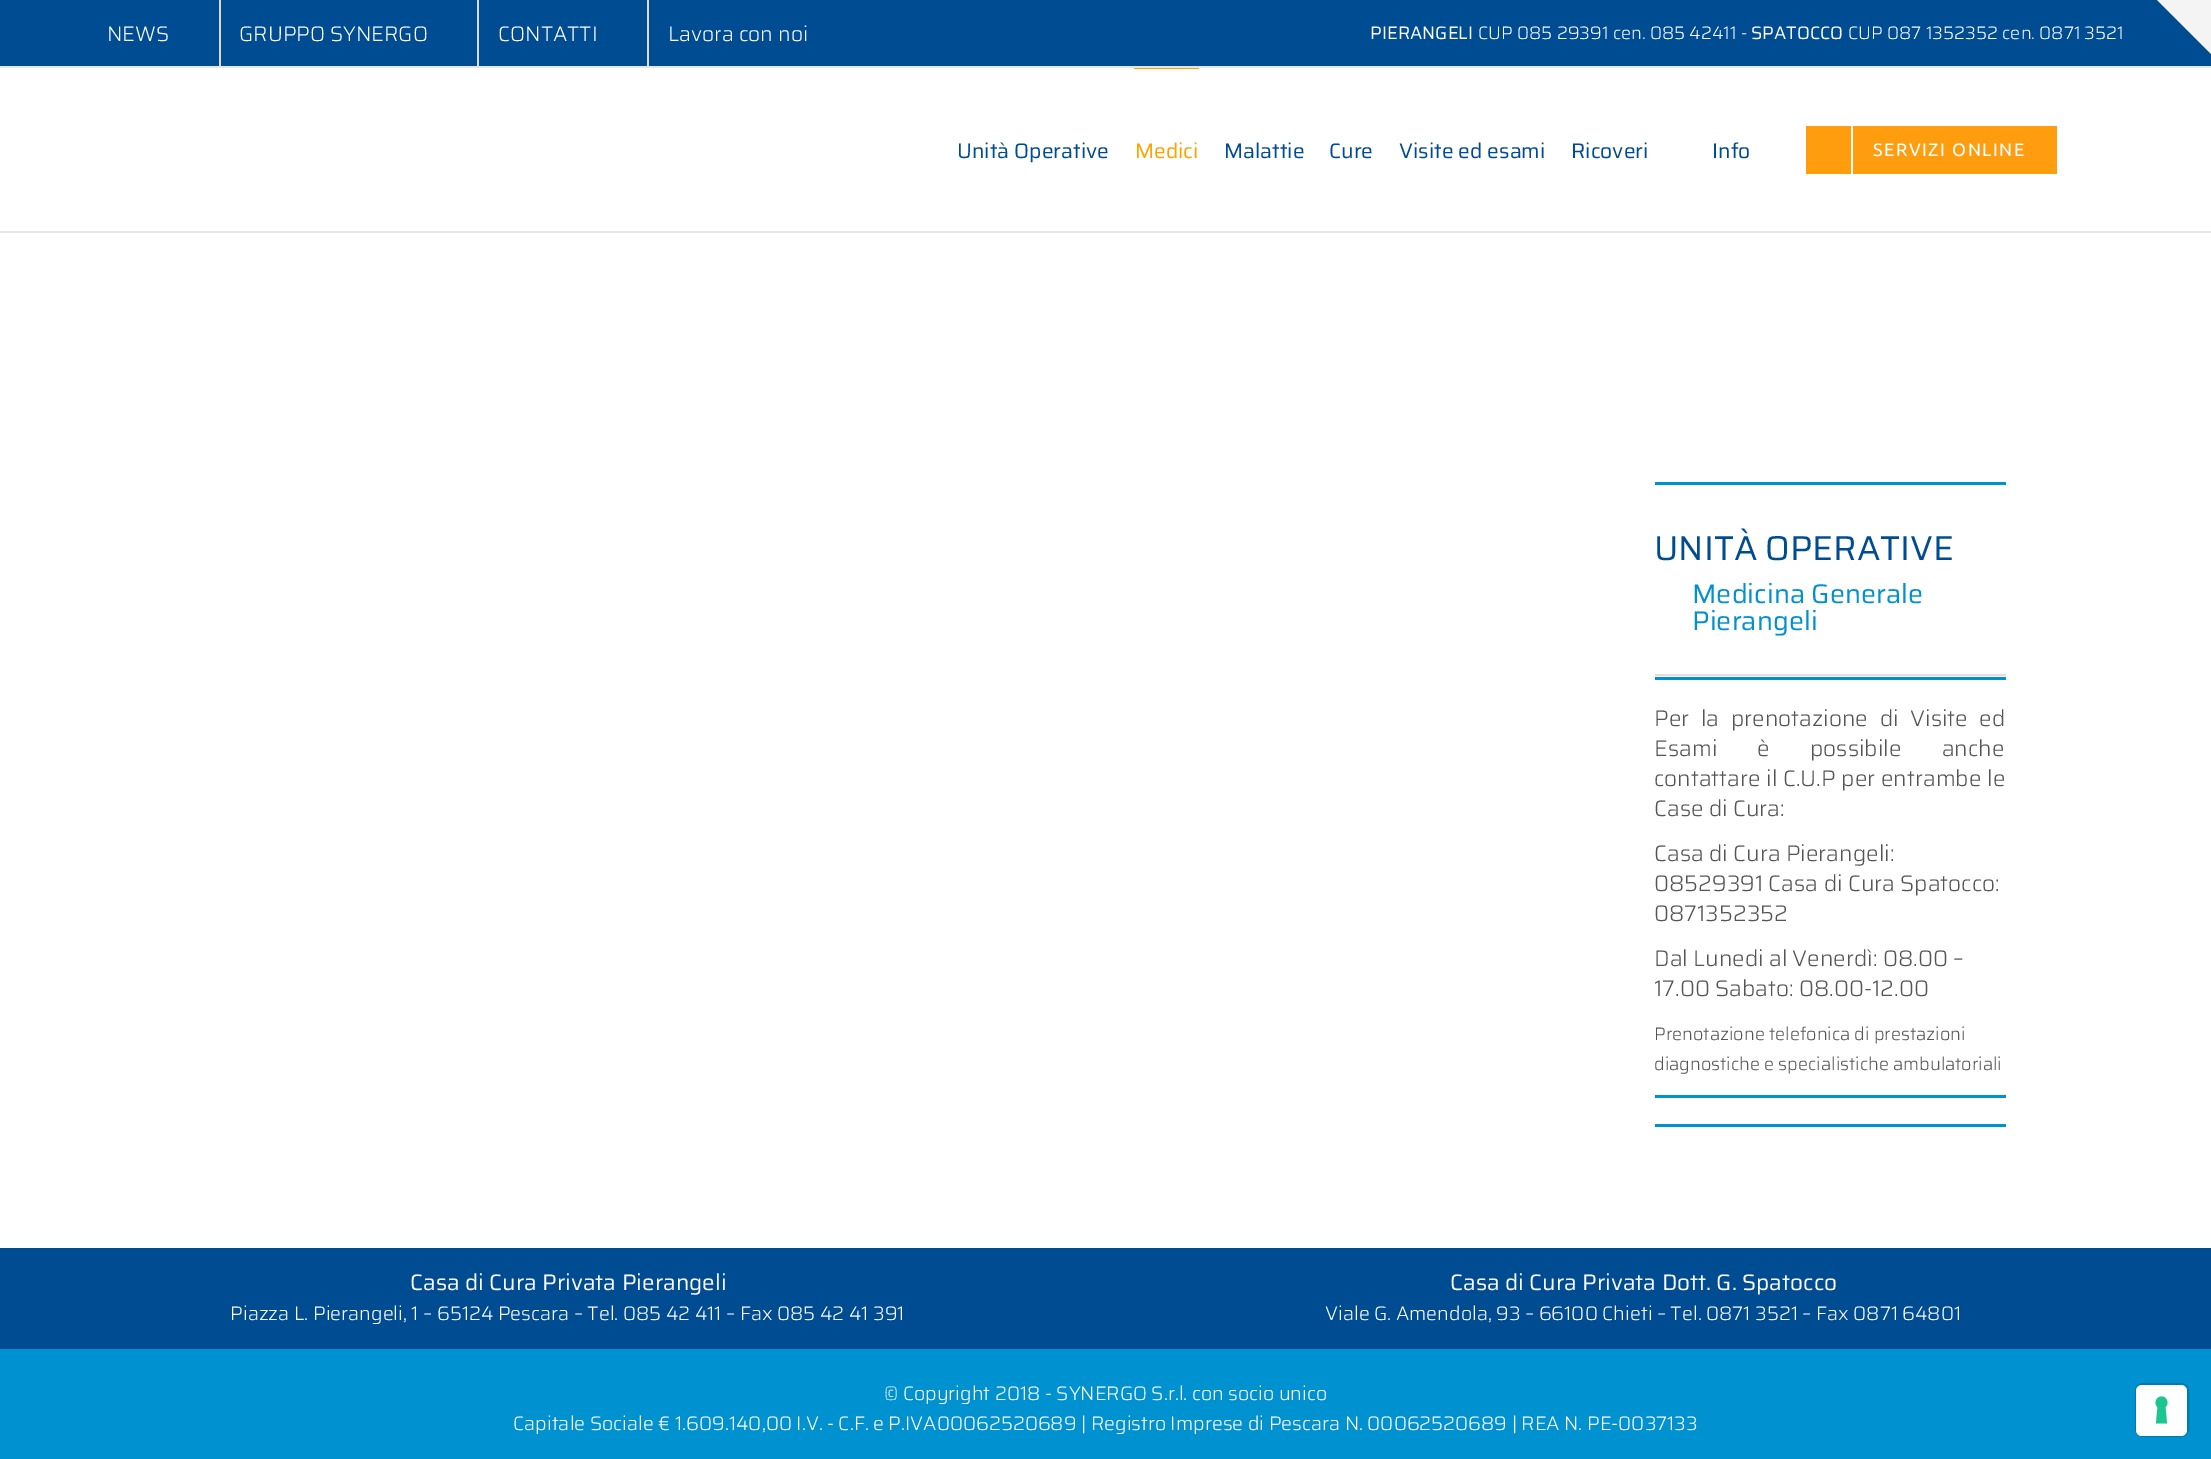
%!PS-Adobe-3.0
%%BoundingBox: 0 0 2211 1459
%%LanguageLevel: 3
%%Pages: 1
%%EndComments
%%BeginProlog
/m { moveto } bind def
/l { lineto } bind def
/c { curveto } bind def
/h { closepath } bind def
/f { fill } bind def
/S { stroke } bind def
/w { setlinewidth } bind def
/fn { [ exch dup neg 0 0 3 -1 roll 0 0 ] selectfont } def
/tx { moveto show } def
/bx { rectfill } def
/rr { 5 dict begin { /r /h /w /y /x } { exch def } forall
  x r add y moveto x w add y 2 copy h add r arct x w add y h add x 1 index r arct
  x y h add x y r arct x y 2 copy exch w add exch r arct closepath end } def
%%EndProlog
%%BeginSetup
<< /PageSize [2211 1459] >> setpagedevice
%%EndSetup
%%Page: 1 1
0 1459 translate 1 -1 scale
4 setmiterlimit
1 setgray
0 0 2211 1459 bx
0 0.298 0.576 setrgbcolor
0 0 2211 66 bx
0.898 setgray
0 66 2211 2 bx
/Saira-Light 21 fn
1 setgray
(NEWS) 107 41 tx
0.863 0.855 0.859 setrgbcolor
219 0 2 66 bx
1 setgray
(GRUPPO SYNERGO) 239 41 tx
0.863 0.855 0.859 setrgbcolor
477 0 2 66 bx
1 setgray
(CONTATTI) 498 41 tx
0.863 0.855 0.859 setrgbcolor
647 0 2 66 bx
1 setgray
(Lavora con noi) 668 41 tx
/Saira-Regular 18 fn
(PIERANGELI) 1370 39 tx
/Saira-Light 18 fn
(CUP 085 29391 cen. 085 42411 -) 1478 39 tx
/Saira-Regular 18 fn
(SPATOCCO) 1751 39 tx
/Saira-Light 18 fn
(CUP 087 1352352 cen. 0871 3521) 1848 39 tx
0.898 setgray
0 231 2211 2 bx
/Saira-Regular 21 fn
0 0.298 0.576 setrgbcolor
(Unità Operative) 957 158 tx
1 0.635 0 setrgbcolor
1134 68 65 1 bx
(Medici) 1135 158 tx
0 0.298 0.576 setrgbcolor
(Malattie) 1224 158 tx
(Cure) 1329 158 tx
(Visite ed esami) 1399 158 tx
(Ricoveri) 1571 158 tx
(Info) 1712 158 tx
1 0.616 0.055 setrgbcolor
1806 126 251 48 bx
1 setgray
1851 126 2 48 bx
/Ubuntu-Regular 18 fn
1873 156 m 1.5 0 (SERVIZI ONLINE) ashow
0.957 setgray
2157 0 m 2211 0 l 2211 54 l h f
0 0.573 0.816 setrgbcolor
1655 482 351 3 bx
/Saira-Regular 34.5 fn
0 0.298 0.576 setrgbcolor
(UNITÀ OPERATIVE) 1654 560 tx
/Saira-Regular 27 fn
0 0.573 0.816 setrgbcolor
(Medicina Generale) 1692 603 tx
(Pierangeli) 1692 630 tx
0.878 0.871 0.871 setrgbcolor
1655 674 351 2 bx
0 0.573 0.816 setrgbcolor
1655 677 351 3 bx
/Saira-Light 22.5 fn
0.333 setgray
1654 726 m 6.5 0 32 (Per la prenotazione di Visite ed) widthshow
1654 756 m 35 0 32 (Esami è possibile anche) widthshow
1654 786 m 0.5 0 32 (contattare il C.U.P per entrambe le) widthshow
(Case di Cura:) 1654 816 tx
(Casa di Cura Pierangeli:) 1654 861 tx
(08529391 Casa di Cura Spatocco:) 1654 891 tx
(0871352352) 1654 921 tx
(Dal Lunedi al Venerdì: 08.00 –) 1654 966 tx
(17.00 Sabato: 08.00-12.00) 1654 996 tx
/Saira-Light 18 fn
(Prenotazione telefonica di prestazioni) 1654 1040 tx
(diagnostiche e specialistiche ambulatoriali) 1654 1070 tx
0 0.573 0.816 setrgbcolor
1655 1095 351 3 bx
1655 1124 351 3 bx
0 0.298 0.576 setrgbcolor
0 1248 2211 101 bx
/Saira-Regular 22.5 fn
1 setgray
(Casa di Cura Privata Pierangeli) 410 1290 tx
/Saira-Light 19.5 fn
(Piazza L. Pierangeli, 1 – 65124 Pescara – Tel. 085 42 411 – Fax 085 42 41 391) 230 1320 tx
/Saira-Regular 22.5 fn
(Casa di Cura Privata Dott. G. Spatocco) 1450 1290 tx
/Saira-Light 19.5 fn
(Viale G. Amendola, 93 – 66100 Chieti – Tel. 0871 3521 – Fax 0871 64801) 1325 1320 tx
0 0.573 0.816 setrgbcolor
0 1349 2211 110 bx
1 setgray
(© Copyright 2018 - SYNERGO S.r.l. con socio unico) 884 1400 tx
(Capitale Sociale € 1.609.140,00 I.V. - C.F. e P.IVA00062520689 | Registro Imprese di Pescara N. 00062520689 | REA N. PE-0037133) 513 1430 tx
0 0.486 0.694 setrgbcolor
2 w
2136 1384 52 52 7 rr S
1 setgray
2136 1385 51 51 6 rr f
0.11 0.776 0.569 setrgbcolor
2161.5 1396.5 m 2167 1396.5 2169.5 1403.5 2165.5 1407 c 2167 1423.5 l 2156 1423.5 l 2157.5 1407 l 2153.5 1403.5 2156 1396.5 2161.5 1396.5 c h eofill
showpage
%%EOF
